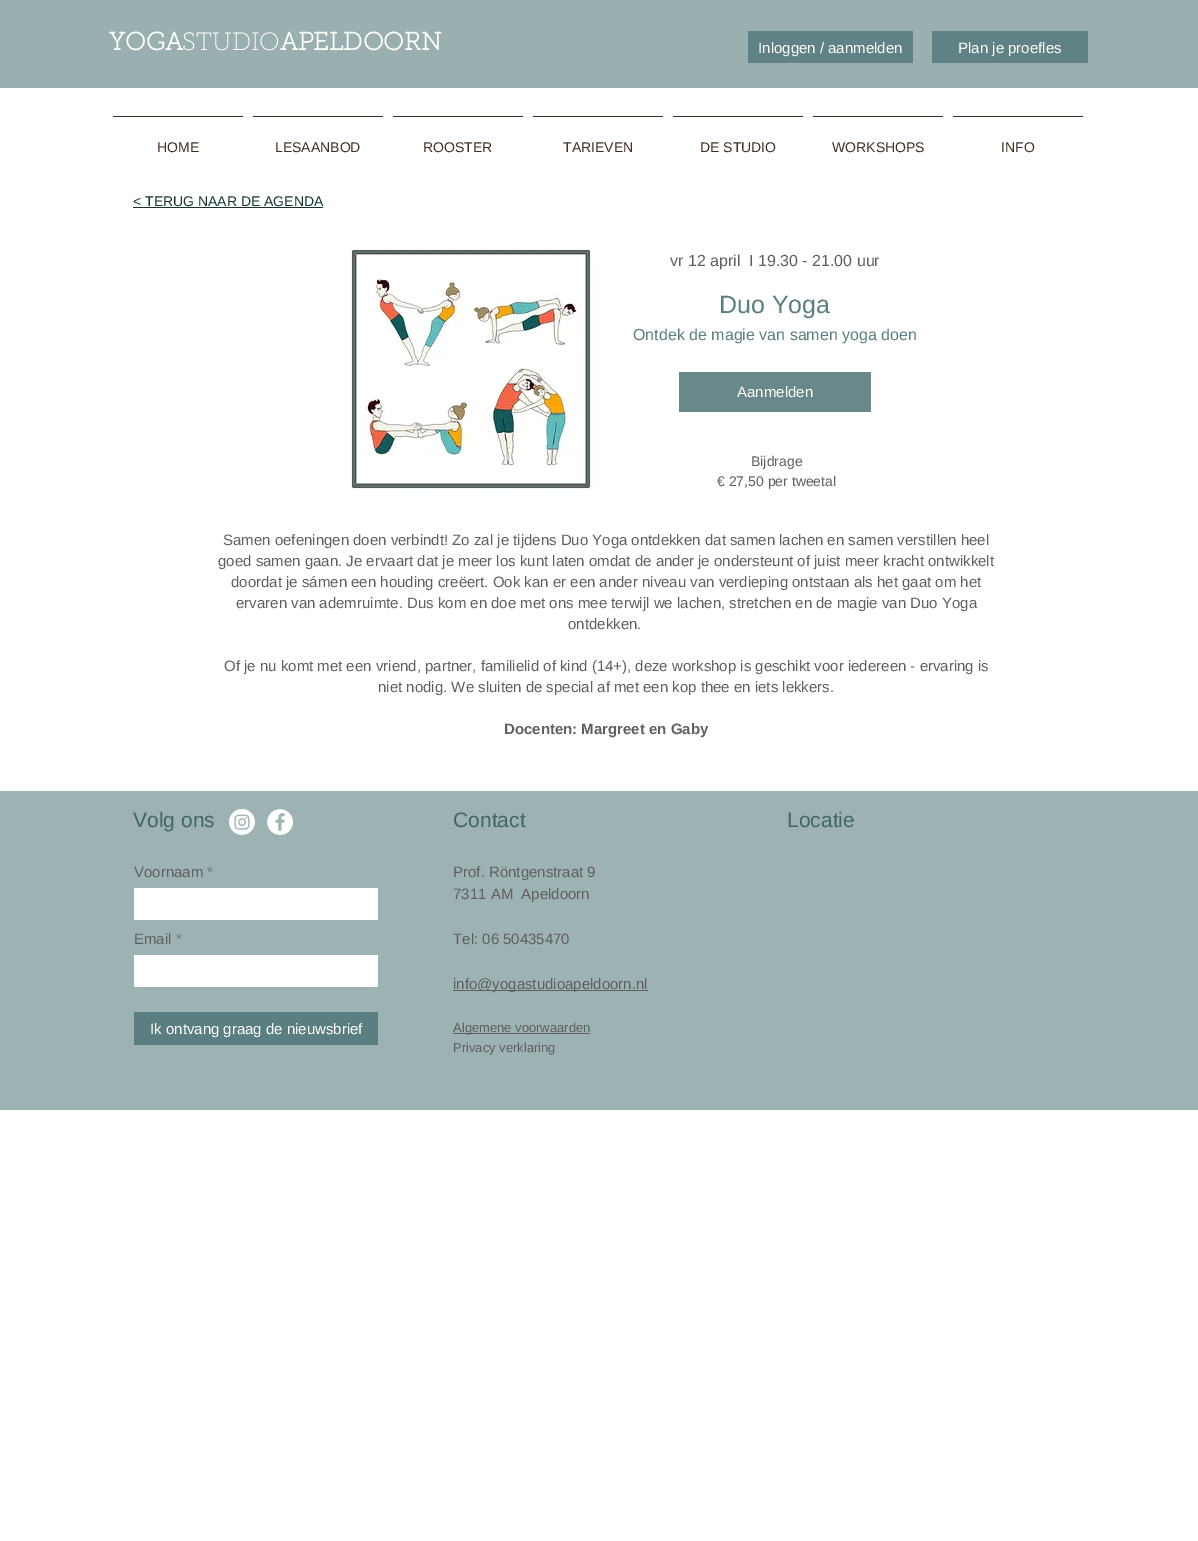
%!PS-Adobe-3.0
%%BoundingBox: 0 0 1198 1541
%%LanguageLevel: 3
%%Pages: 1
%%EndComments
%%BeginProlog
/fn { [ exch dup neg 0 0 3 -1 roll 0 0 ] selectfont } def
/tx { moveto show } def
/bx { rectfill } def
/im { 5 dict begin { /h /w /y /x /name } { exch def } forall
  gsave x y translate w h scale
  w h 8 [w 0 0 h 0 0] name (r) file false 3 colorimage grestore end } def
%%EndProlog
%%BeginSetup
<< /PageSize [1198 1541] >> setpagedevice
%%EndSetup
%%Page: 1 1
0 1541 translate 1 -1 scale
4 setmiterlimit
1 setgray
0 0 1198 1541 bx
0.6 0.686 0.69 setrgbcolor
0 0 1198 88 bx
/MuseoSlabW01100-Bold 25 fn
1 setgray
(YOGA) 109 50 tx
/MuseoSlabW01100-Thin 25 fn
(STUDIO) 182 50 tx
/MuseoSlabW01100-Bold 25 fn
(APELDOORN) 280 50 tx
0.376 0.51 0.518 setrgbcolor
748 31 165 32 bx
/LiberationSans-Regular 15 fn
1 setgray
(Inloggen / aanmelden) 758 53 tx
0.376 0.51 0.518 setrgbcolor
932 31 156 32 bx
1 setgray
(Plan je proefles) 958 53 tx
0.251 0.18 0.137 setrgbcolor
113 116 130 1 bx
/LiberationSans-Regular 14 fn
(HOME) 157 152 tx
253 116 130 1 bx
(LESAANBOD) 275 152 tx
393 116 130 1 bx
(ROOSTER) 423 152 tx
533 116 130 1 bx
(TARIEVEN) 563 152 tx
673 116 130 1 bx
(DE STUDIO) 700 152 tx
813 116 130 1 bx
(WORKSHOPS) 832 152 tx
953 116 130 1 bx
(INFO) 1001 152 tx
0.082 0.204 0.184 setrgbcolor
(< TERUG NAAR DE AGENDA) 133 206 tx
133 207 190 1 bx
(image0.raw) 349 247 244 244 im
/LiberationSans-Regular 16 fn
0.373 0.369 0.38 setrgbcolor
(vr 12 april) 670 266 tx
(I 19.30 - 21.00 uur) 749 266 tx
/LiberationSans-Regular 25 fn
0.357 0.494 0.502 setrgbcolor
(Duo Yoga) 719 313 tx
/LiberationSans-Regular 16 fn
(Ontdek de magie van samen yoga doen) 633 340 tx
0.408 0.533 0.541 setrgbcolor
679 372 192 40 bx
/LiberationSans-Regular 15 fn
1 setgray
(Aanmelden) 737 397 tx
/LiberationSans-Regular 14 fn
0.373 0.369 0.38 setrgbcolor
(Bijdrage) 751 466 tx
(€ 27,50 per tweetal) 717 486 tx
/LiberationSans-Regular 15 fn
(Samen oefeningen doen verbindt! Zo zal je tijdens Duo Yoga ontdekken dat samen lachen en samen verstillen heel) 223 545 tx
(goed samen gaan. Je ervaart dat je meer los kunt laten omdat de ander je ondersteunt of juist meer kracht ontwikkelt) 218 566 tx
(doordat je sámen een houding creëert. Ook kan er een ander niveau van verdieping ontstaan als het gaat om het) 231 587 tx
(ervaren van ademruimte. Dus kom en doe met ons mee terwijl we lachen, stretchen en de magie van Duo Yoga) 236 608 tx
(ontdekken.) 568 629 tx
(Of je nu komt met een vriend, partner, familielid of kind \(14+\), deze workshop is geschikt voor iedereen - ervaring is) 224 671 tx
(niet nodig. We sluiten de special af met een kop thee en iets lekkers.) 378 692 tx
/LiberationSans-Bold 15 fn
(Docenten: Margreet en Gaby) 504 734 tx
0.616 0.698 0.702 setrgbcolor
0 791 1198 319 bx
/LiberationSans-Regular 21 fn
0.263 0.396 0.4 setrgbcolor
(Volg ons) 133 827 tx
(image1.raw) 229 809 26 26 im
(image2.raw) 267 809 26 26 im
(Contact) 453 827 tx
(Locatie) 787 827 tx
/LiberationSans-Regular 15 fn
0.373 0.369 0.38 setrgbcolor
(Voornaam) 134 877 tx
0.357 0.494 0.502 setrgbcolor
(*) 207 877 tx
1 setgray
134 888 244 32 bx
0.373 0.369 0.38 setrgbcolor
(Email) 134 944 tx
0.357 0.494 0.502 setrgbcolor
(*) 176 944 tx
1 setgray
134 955 244 32 bx
0.357 0.494 0.502 setrgbcolor
134 1012 244 33 bx
1 setgray
(Ik ontvang graag de nieuwsbrief) 150 1034 tx
0.373 0.369 0.38 setrgbcolor
(Prof. Röntgenstraat 9) 453 877 tx
(7311 AM  Apeldoorn) 453 899 tx
(Tel: 06 50435470) 453 944 tx
453 990 195 1 bx
(info@yogastudioapeldoorn.nl) 453 989 tx
453 1033 137 1 bx
/LiberationSans-Regular 13 fn
(Algemene voorwaarden) 453 1032 tx
(Privacy verklaring) 453 1052 tx
showpage
%%EOF
